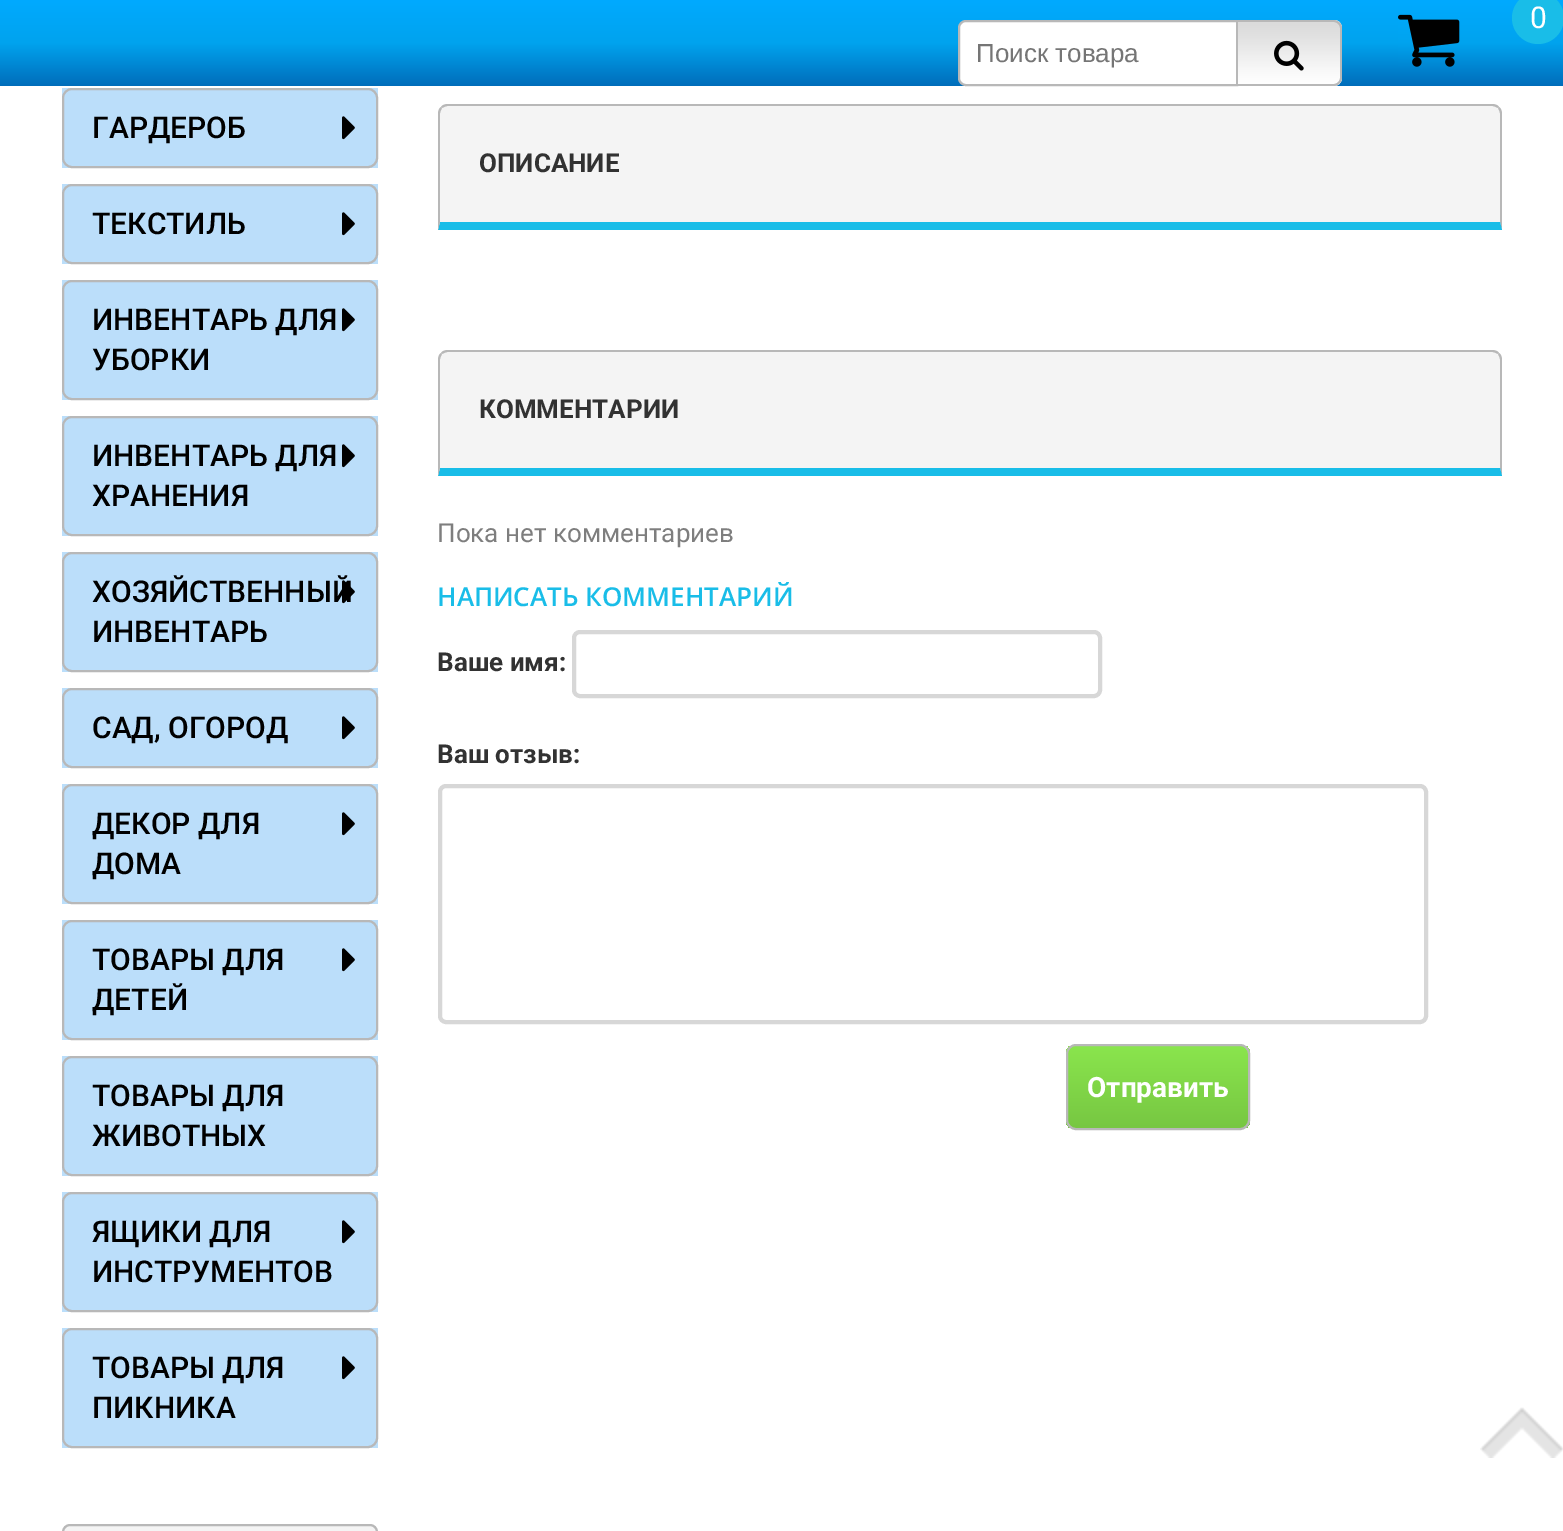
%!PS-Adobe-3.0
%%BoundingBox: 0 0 1563 1531
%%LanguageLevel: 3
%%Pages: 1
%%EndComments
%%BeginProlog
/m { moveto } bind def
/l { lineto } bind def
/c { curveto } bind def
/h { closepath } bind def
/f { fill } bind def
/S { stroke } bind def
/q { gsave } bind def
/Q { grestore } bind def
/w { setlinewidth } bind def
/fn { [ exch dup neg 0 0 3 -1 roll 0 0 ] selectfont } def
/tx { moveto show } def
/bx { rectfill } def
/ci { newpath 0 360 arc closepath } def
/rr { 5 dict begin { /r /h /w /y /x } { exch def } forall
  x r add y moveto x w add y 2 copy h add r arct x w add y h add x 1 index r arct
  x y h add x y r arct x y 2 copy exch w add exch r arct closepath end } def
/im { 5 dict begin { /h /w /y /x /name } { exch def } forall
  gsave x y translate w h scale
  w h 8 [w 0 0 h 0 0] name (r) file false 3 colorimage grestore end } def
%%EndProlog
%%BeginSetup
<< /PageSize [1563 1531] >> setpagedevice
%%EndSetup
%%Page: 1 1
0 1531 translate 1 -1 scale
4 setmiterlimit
1 setgray
0 0 1563 1531 bx
q 0 0 m 1563 0 l 1563 86 l 0 86 l h clip newpath
<< /ShadingType 2 /ColorSpace /DeviceRGB /Coords [782 0 782 86] /Extend [true true] /Function << /FunctionType 3 /Domain [0 1] /Functions [<< /FunctionType 2 /Domain [0 1] /C0 [0 0.667 1] /C1 [0 0.639 0.933] /N 1 >> << /FunctionType 2 /Domain [0 1] /C0 [0 0.639 0.933] /C1 [0 0.427 0.729] /N 1 >>] /Bounds [0.5] /Encode [0 1 0 1] >> >> shfill Q
(image0.raw) 1398 14 62 53 im
0.098 0.741 0.91 setrgbcolor
1538 18 26 ci f
/Roboto-Regular 30 fn
1 setgray
(0) 1530 28 tx
966 21 m 1237 21 l 1237 85 l 966 85 l 962 85 959 82 959 78 c 959 28 l 959 24 962 21 966 21 c h q f Q
0.722 setgray
2 w
S
/LiberationSans-Regular 26 fn
0.459 setgray
(Поиск товара) 976 62 tx
0.996 setgray
1238 20 m 1334 20 l 1338.5 20 1342 23.5 1342 28 c 1342 78 l 1342 82.5 1338.5 86 1334 86 c 1238 86 l h f
(image1.raw) 1238 22 104 62 im
0.722 setgray
1238 20 m 1334 20 l 1338 20 1342 24 1342 28 c 1342 78 l 1342 82 1338 86 1334 86 c 1238 86 l h 1238 22 m 1334 22 l 1337 22 1340 25 1340 28 c 1340 78 l 1340 81 1337 84 1334 84 c 1238 84 l h eofill
(image2.raw) 1274 40 30 31 im
0.733 0.871 0.98 setrgbcolor
62 88 316 80 bx
0.722 setgray
63 89 314 78 9 rr S
/Roboto-Medium 30 fn
0 setgray
(ГАРДЕРОБ) 92 138 tx
(image3.raw) 342 116 13 24 im
0.733 0.871 0.98 setrgbcolor
62 184 316 80 bx
0.722 setgray
63 185 314 78 9 rr S
0 setgray
(ТЕКСТИЛЬ) 92 234 tx
(image3.raw) 342 212 13 24 im
0.733 0.871 0.98 setrgbcolor
62 280 316 120 bx
0.722 setgray
63 281 314 118 9 rr S
0 setgray
(ИНВЕНТАРЬ ДЛЯ) 92 330 tx
(УБОРКИ) 92 370 tx
(image3.raw) 342 308 13 24 im
0.733 0.871 0.98 setrgbcolor
62 416 316 120 bx
0.722 setgray
63 417 314 118 9 rr S
0 setgray
(ИНВЕНТАРЬ ДЛЯ) 92 466 tx
(ХРАНЕНИЯ) 92 506 tx
(image3.raw) 342 444 13 24 im
0.733 0.871 0.98 setrgbcolor
62 552 316 120 bx
0.722 setgray
63 553 314 118 9 rr S
0 setgray
(ХОЗЯЙСТВЕННЫЙ) 92 602 tx
(ИНВЕНТАРЬ) 92 642 tx
(image4.raw) 342 580 13 24 im
0.733 0.871 0.98 setrgbcolor
62 688 316 80 bx
0.722 setgray
63 689 314 78 9 rr S
0 setgray
(САД, ОГОРОД) 92 738 tx
(image3.raw) 342 716 13 24 im
0.733 0.871 0.98 setrgbcolor
62 784 316 120 bx
0.722 setgray
63 785 314 118 9 rr S
0 setgray
(ДЕКОР ДЛЯ) 92 834 tx
(ДОМА) 92 874 tx
(image3.raw) 342 812 13 24 im
0.733 0.871 0.98 setrgbcolor
62 920 316 120 bx
0.722 setgray
63 921 314 118 9 rr S
0 setgray
(ТОВАРЫ ДЛЯ) 92 970 tx
(ДЕТЕЙ) 92 1010 tx
(image3.raw) 342 948 13 24 im
0.733 0.871 0.98 setrgbcolor
62 1056 316 120 bx
0.722 setgray
63 1057 314 118 9 rr S
0 setgray
(ТОВАРЫ ДЛЯ) 92 1106 tx
(ЖИВОТНЫХ) 92 1146 tx
0.733 0.871 0.98 setrgbcolor
62 1192 316 120 bx
0.722 setgray
63 1193 314 118 9 rr S
0 setgray
(ЯЩИКИ ДЛЯ) 92 1242 tx
(ИНСТРУМЕНТОВ) 92 1282 tx
(image3.raw) 342 1220 13 24 im
0.733 0.871 0.98 setrgbcolor
62 1328 316 120 bx
0.722 setgray
63 1329 314 118 9 rr S
0 setgray
(ТОВАРЫ ДЛЯ) 92 1378 tx
(ПИКНИКА) 92 1418 tx
(image3.raw) 342 1356 13 24 im
0.957 setgray
63 1525 314 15 7 rr q f Q
0.722 setgray
S
0.957 setgray
448 106 m 1492 106 l 1496.5 106 1500 109.5 1500 114 c 1500 222 l 440 222 l 440 114 l 440 109.5 443.5 106 448 106 c h f
0.722 setgray
448 104 m 445 104 442 105 441 107 c 442 108 l 444 107 446 106 448 106 c 1492 106 l 1494 106 1496 107 1498 108 c 1499 107 l 1498 105 1495 104 1492 104 c h f
1502 230 m 1502 114 l 1502 111 1501 108 1499 107 c 1498 108 l 1499 110 1500 112 1500 114 c 1500 222 l h f
0.098 0.741 0.91 setrgbcolor
1502 230 m 1500 222 l 440 222 l 438 230 l h f
0.722 setgray
438 230 m 440 222 l 440 114 l 440 112 441 110 442 108 c 441 107 l 439 108 438 111 438 114 c h f
/Roboto-Bold 26 fn
0.196 setgray
(ОПИСАНИЕ) 479 172 tx
0.957 setgray
448 352 m 1492 352 l 1496.5 352 1500 355.5 1500 360 c 1500 468 l 440 468 l 440 360 l 440 355.5 443.5 352 448 352 c h f
0.722 setgray
448 350 m 445 350 442 351 441 353 c 442 354 l 444 353 446 352 448 352 c 1492 352 l 1494 352 1496 353 1498 354 c 1499 353 l 1498 351 1495 350 1492 350 c h f
1502 476 m 1502 360 l 1502 357 1501 354 1499 353 c 1498 354 l 1499 356 1500 358 1500 360 c 1500 468 l h f
0.098 0.741 0.91 setrgbcolor
1502 476 m 1500 468 l 440 468 l 438 476 l h f
0.722 setgray
438 476 m 440 468 l 440 360 l 440 358 441 356 442 354 c 441 353 l 439 354 438 357 438 360 c h f
0.196 setgray
(КОММЕНТАРИИ) 479 418 tx
/Roboto-Regular 26 fn
0.494 setgray
(Пока нет комментариев) 437 542 tx
q
438 582 1064 638 rectclip
/OpenSans-SemiBold 26 fn
0.098 0.741 0.91 setrgbcolor
(НАПИСАТЬ КОММЕНТАРИЙ) 437 606 tx
Q
/Roboto-Bold 26 fn
0.196 setgray
(Ваше имя:) 437 671 tx
0.843 setgray
4 w
574 632 526 64 6 rr S
0.196 setgray
(Ваш отзыв:) 437 763 tx
0.843 setgray
440 786 986 236 6 rr S
q
1066 1044 184 86 10 rr clip newpath
q 1066 1046 m 1250 1046 l 1250 1128 l 1066 1128 l h clip newpath
<< /ShadingType 2 /ColorSpace /DeviceRGB /Coords [1158 1046 1158 1128] /Extend [true true] /Function << /FunctionType 2 /Domain [0 1] /C0 [0.541 0.898 0.302] /C1 [0.467 0.78 0.259] /N 1 >> >> shfill Q
Q
0.722 setgray
2 w
1067 1045 182 84 9 rr S
/Roboto-Bold 28 fn
1 setgray
(Отправить) 1087 1097 tx
(image5.raw) 1480 1407 83 51 im
showpage
%%EOF
